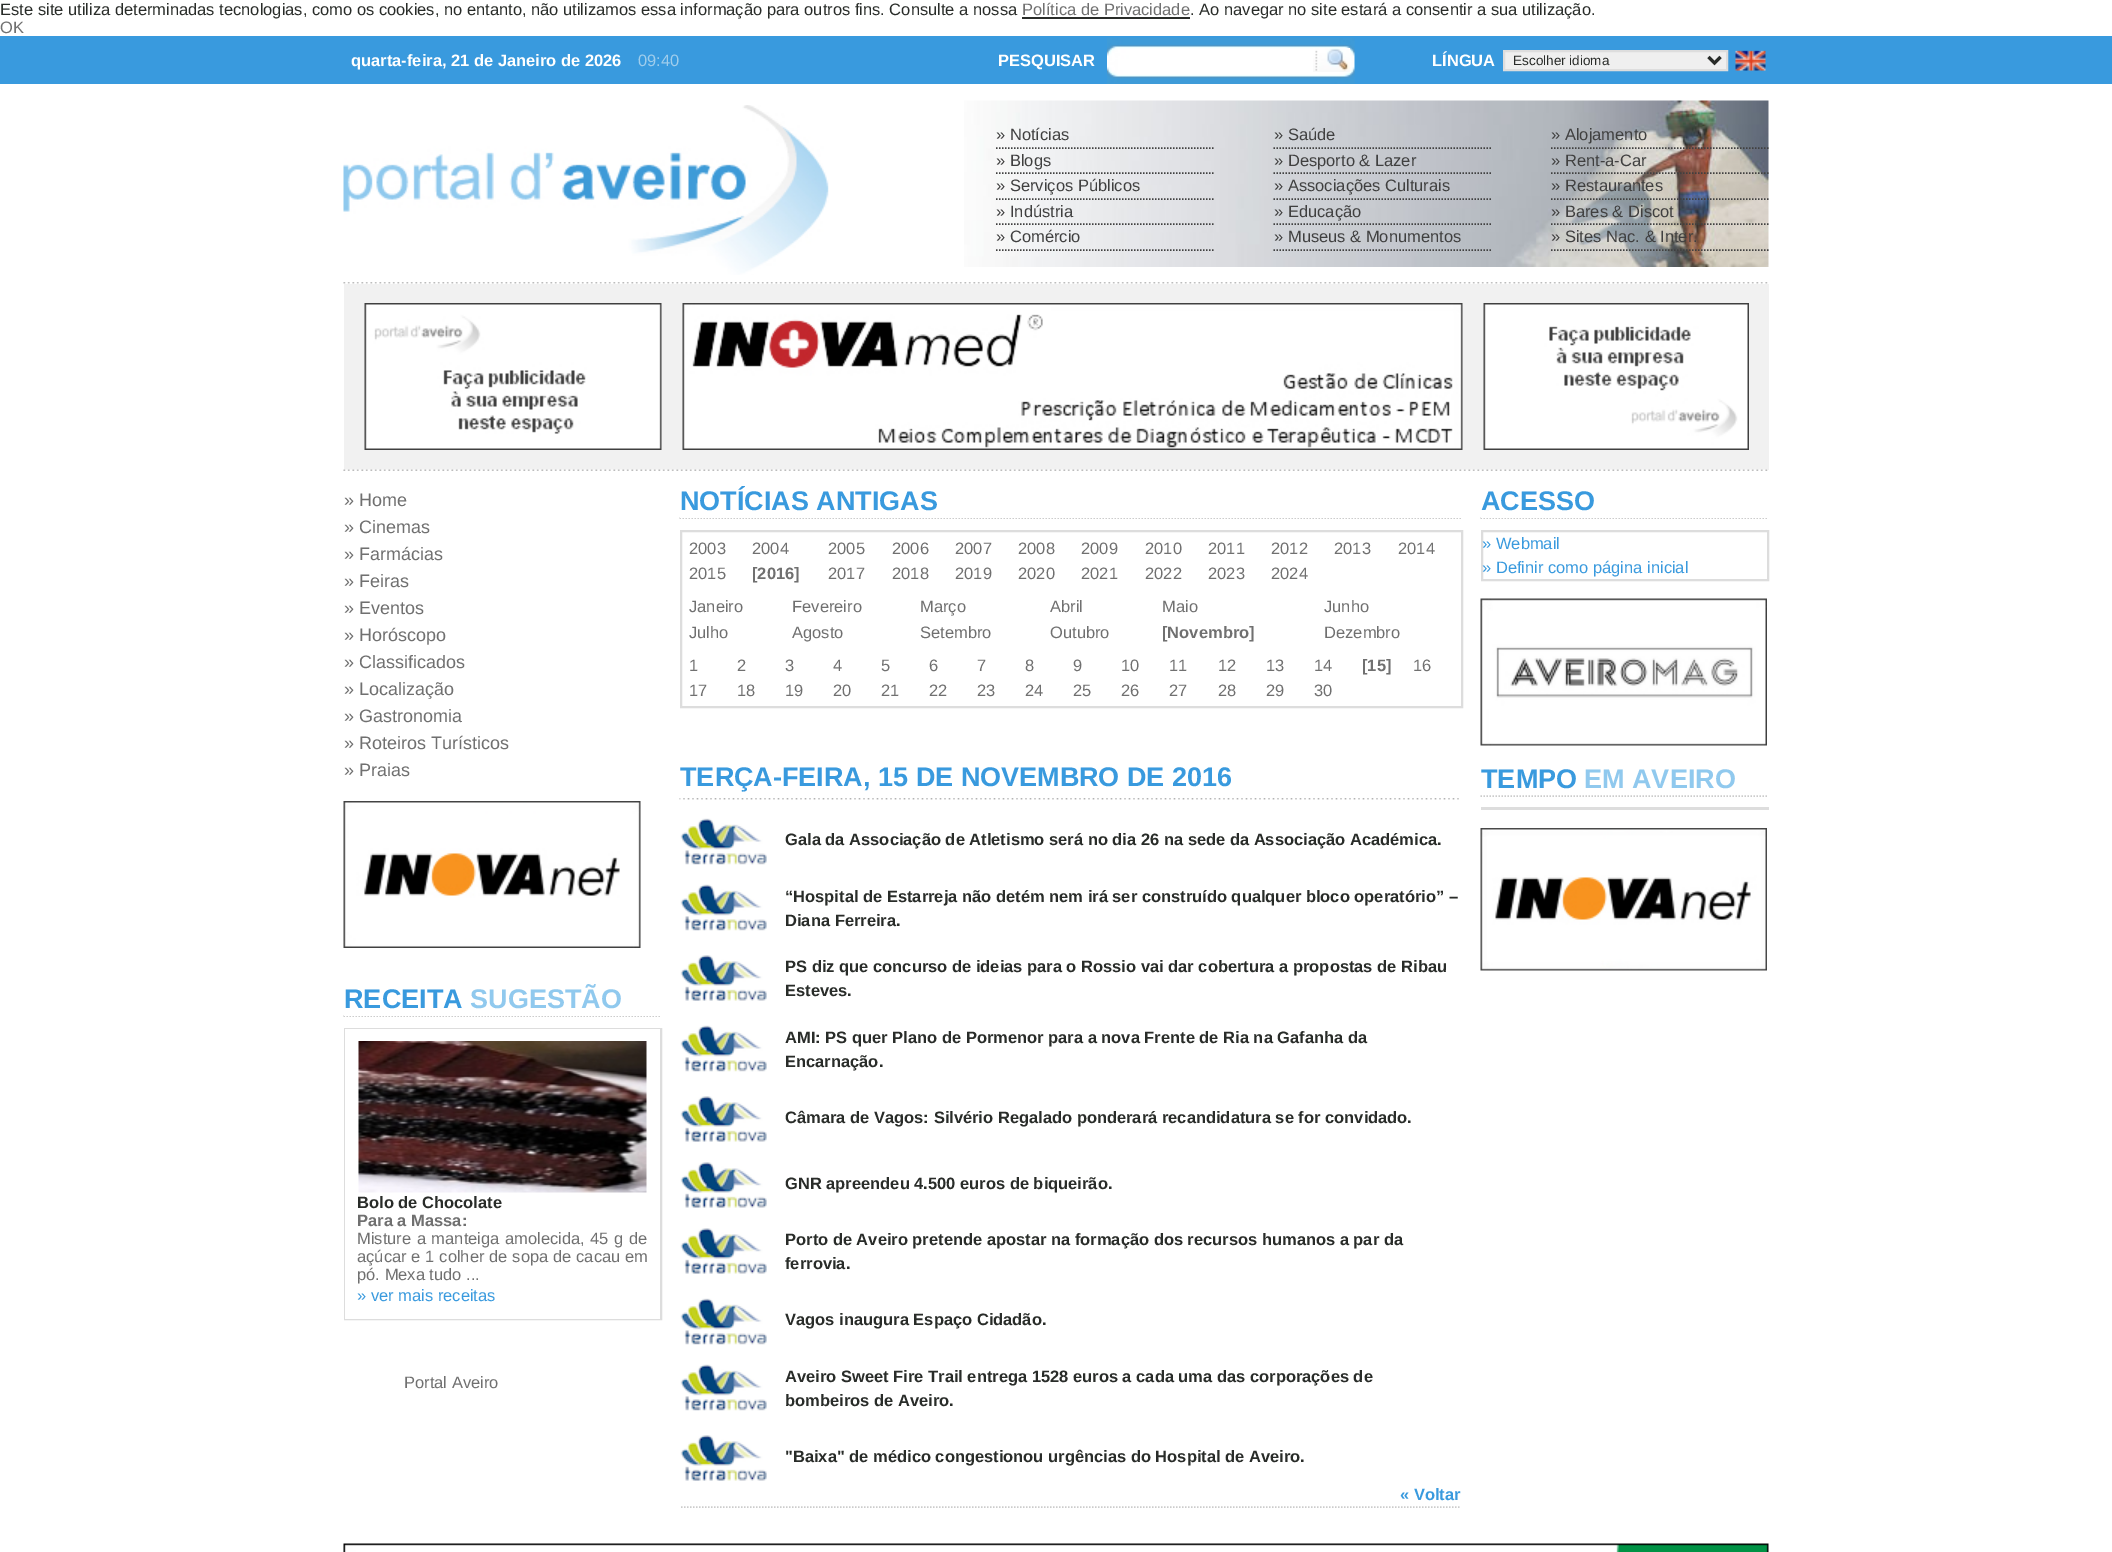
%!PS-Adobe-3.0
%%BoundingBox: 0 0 2112 1552
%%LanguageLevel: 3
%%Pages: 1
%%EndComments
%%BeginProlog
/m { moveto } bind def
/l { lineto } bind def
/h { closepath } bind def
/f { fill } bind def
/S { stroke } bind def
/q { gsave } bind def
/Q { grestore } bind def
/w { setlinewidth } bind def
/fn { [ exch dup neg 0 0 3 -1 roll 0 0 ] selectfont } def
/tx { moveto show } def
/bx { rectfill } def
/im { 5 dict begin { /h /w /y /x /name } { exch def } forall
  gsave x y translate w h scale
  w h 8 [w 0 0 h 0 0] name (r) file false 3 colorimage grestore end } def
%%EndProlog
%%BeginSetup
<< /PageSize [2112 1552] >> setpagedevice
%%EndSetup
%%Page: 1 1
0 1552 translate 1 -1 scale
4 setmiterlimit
1 setgray
0 0 2112 1552 bx
/LiberationSans-Regular 16.5 fn
0.161 0.173 0.161 setrgbcolor
(Este site utiliza determinadas tecnologias, como os cookies, no entanto, não utilizamos essa informação para outros fins. Consulte a nossa) 0 15 tx
0.439 setgray
(Política de Privacidade) 1022 15 tx
0.161 0.173 0.161 setrgbcolor
1022 17 168 2 bx
(. Ao navegar no site estará a consentir a sua utilização.) 1190 15 tx
0.439 setgray
(OK) 0 33 tx
0.224 0.604 0.871 setrgbcolor
0 36 2112 48 bx
/LiberationSans-Bold 16.5 fn
1 setgray
(quarta-feira, 21 de Janeiro de 2026) 351 66 tx
/LiberationSans-Regular 16.5 fn
0.624 0.804 0.925 setrgbcolor
(09:40) 638 66 tx
/LiberationSans-Bold 16.5 fn
1 setgray
(PESQUISAR) 998 66 tx
(image0.raw) 1107 38 248 46 im
(image1.raw) 1313 48 37 24 im
(LÍNGUA) 1432 66 tx
0.937 setgray
1504 51 m 1727 51 l 1727 70 l 1504 70 l h q f Q
0.867 setgray
2 w
S
0.161 0.173 0.161 setrgbcolor
3 w
1708.5 57 m 1714.5 63 l 1720.5 57 l S
/LiberationSans-Regular 13.5 fn
(Escolher idioma) 1513 65 tx
(image2.raw) 1735 50 31 21 im
(image3.raw) 343 105 486 170 im
(image4.raw) 964 100 805 167 im
0.251 setgray
1.5 w
[1.5 1.5] 0 setdash
996 148 m 1213.5 148 l S
/LiberationSans-Regular 16.5 fn
(» Notícias) 996 140 tx
996 173 m 1213.5 173 l S
(» Blogs) 996 166 tx
996 199 m 1213.5 199 l S
(» Serviços Públicos) 996 191 tx
996 224 m 1213.5 224 l S
(» Indústria) 996 217 tx
996 250 m 1213.5 250 l S
(» Comércio) 996 242 tx
1273.5 148 m 1491 148 l S
(» Saúde) 1274 140 tx
1273.5 173 m 1491 173 l S
(» Desporto & Lazer) 1274 166 tx
1273.5 199 m 1491 199 l S
(» Associações Culturais) 1274 191 tx
1273.5 224 m 1491 224 l S
(» Educação) 1274 217 tx
1273.5 250 m 1491 250 l S
(» Museus & Monumentos) 1274 242 tx
1551 148 m 1768.5 148 l S
(» Alojamento) 1551 140 tx
1551 173 m 1768.5 173 l S
(» Rent-a-Car) 1551 166 tx
1551 199 m 1768.5 199 l S
(» Restaurantes) 1551 191 tx
1551 224 m 1768.5 224 l S
(» Bares & Discot) 1551 217 tx
1551 250 m 1768.5 250 l S
(» Sites Nac. & Inter.) 1551 242 tx
(image5.raw) 343 282 1425 2 im
0.945 setgray
344 284 1425 186 bx
(image6.raw) 364 303 298 147 im
(image7.raw) 682 303 781 147 im
(image8.raw) 1483 303 266 147 im
(image9.raw) 343 469 1425 2 im
/LiberationSans-Regular 18 fn
0.439 setgray
(» Home) 344 506 tx
(» Cinemas) 344 533 tx
(» Farmácias) 344 560 tx
(» Feiras) 344 587 tx
(» Eventos) 344 614 tx
(» Horóscopo) 344 641 tx
(» Classificados) 344 668 tx
(» Localização) 344 695 tx
(» Gastronomia) 344 722 tx
(» Roteiros Turísticos) 344 749 tx
(» Praias) 344 776 tx
(image10.raw) 343 801 298 147 im
0.8 setgray
343.5 1016 m 661.5 1016 l S
1 setgray
344 1015 316 1 bx
/LiberationSans-Bold 27 fn
0.224 0.604 0.871 setrgbcolor
(RECEITA) 344 1008 tx
0.565 0.788 0.933 setrgbcolor
(SUGESTÃO) 470 1008 tx
0.867 setgray
2 w
[] 0 setdash
345 1029 316 290 rectstroke
1 setgray
345 1029 315 290 bx
(image11.raw) 358 1041 289 152 im
/LiberationSans-Bold 16.5 fn
0.161 0.173 0.161 setrgbcolor
(Bolo de Chocolate) 357 1208 tx
0.439 setgray
(Para a Massa:) 357 1226 tx
/LiberationSans-Regular 16.5 fn
357 1244 m 1 0 32 (Misture a manteiga amolecida, 45 g de) widthshow
357 1262 m 0.25 0 32 (açúcar e 1 colher de sopa de cacau em) widthshow
(pó. Mexa tudo ...) 357 1280 tx
0.224 0.604 0.871 setrgbcolor
(» ver mais receitas) 357 1301 tx
0.439 setgray
(Portal Aveiro) 404 1388 tx
0.8 setgray
1.5 w
[1.5 1.5] 0 setdash
679.5 518 m 1462.5 518 l S
1 setgray
680 517 781 1 bx
/LiberationSans-Bold 27 fn
0.224 0.604 0.871 setrgbcolor
(NOTÍCIAS ANTIGAS) 680 510 tx
0.867 setgray
2 w
[] 0 setdash
681 531 781 176 rectstroke
/LiberationSans-Regular 16.5 fn
0.439 setgray
(2003) 689 554 tx
(2004) 752 554 tx
(2005) 828 554 tx
(2006) 892 554 tx
(2007) 955 554 tx
(2008) 1018 554 tx
(2009) 1081 554 tx
(2010) 1145 554 tx
(2011) 1208 554 tx
(2012) 1271 554 tx
(2013) 1334 554 tx
(2014) 1398 554 tx
(2015) 689 579 tx
/LiberationSans-Bold 16.5 fn
([2016]) 752 579 tx
/LiberationSans-Regular 16.5 fn
(2017) 828 579 tx
(2018) 892 579 tx
(2019) 955 579 tx
(2020) 1018 579 tx
(2021) 1081 579 tx
(2022) 1145 579 tx
(2023) 1208 579 tx
(2024) 1271 579 tx
(Janeiro) 689 612 tx
(Fevereiro) 792 612 tx
(Março) 920 612 tx
(Abril) 1050 612 tx
(Maio) 1162 612 tx
(Junho) 1324 612 tx
(Julho) 689 638 tx
(Agosto) 792 638 tx
(Setembro) 920 638 tx
(Outubro) 1050 638 tx
/LiberationSans-Bold 16.5 fn
([Novembro]) 1162 638 tx
/LiberationSans-Regular 16.5 fn
(Dezembro) 1324 638 tx
(1) 689 671 tx
(2) 737 671 tx
(3) 785 671 tx
(4) 833 671 tx
(5) 881 671 tx
(6) 929 671 tx
(7) 977 671 tx
(8) 1025 671 tx
(9) 1073 671 tx
(10) 1121 671 tx
(11) 1169 671 tx
(12) 1218 671 tx
(13) 1266 671 tx
(14) 1314 671 tx
/LiberationSans-Bold 16.5 fn
([15]) 1362 671 tx
/LiberationSans-Regular 16.5 fn
(16) 1413 671 tx
(17) 689 696 tx
(18) 737 696 tx
(19) 785 696 tx
(20) 833 696 tx
(21) 881 696 tx
(22) 929 696 tx
(23) 977 696 tx
(24) 1025 696 tx
(25) 1073 696 tx
(26) 1121 696 tx
(27) 1169 696 tx
(28) 1218 696 tx
(29) 1266 696 tx
(30) 1314 696 tx
/LiberationSans-Bold 27 fn
0.224 0.604 0.871 setrgbcolor
(TERÇA-FEIRA, 15 DE NOVEMBRO DE 2016) 680 786 tx
(image12.raw) 679 798 780 2 im
(image13.raw) 680 818 87 47 im
/LiberationSans-Bold 16.5 fn
0.161 0.173 0.161 setrgbcolor
(Gala da Associação de Atletismo será no dia 26 na sede da Associação Académica.) 785 845 tx
(image13.raw) 680 884 87 47 im
(“Hospital de Estarreja não detém nem irá ser construído qualquer bloco operatório” –) 785 902 tx
(Diana Ferreira.) 785 926 tx
(image14.raw) 680 955 87 46 im
(PS diz que concurso de ideias para o Rossio vai dar cobertura a propostas de Ribau) 785 972 tx
(Esteves.) 785 996 tx
(image13.raw) 680 1025 87 47 im
(AMI: PS quer Plano de Pormenor para a nova Frente de Ria na Gafanha da) 785 1043 tx
(Encarnação.) 785 1067 tx
(image14.raw) 680 1096 87 46 im
(Câmara de Vagos: Silvério Regalado ponderará recandidatura se for convidado.) 785 1123 tx
(image14.raw) 680 1162 87 46 im
(GNR apreendeu 4.500 euros de biqueirão.) 785 1189 tx
(image14.raw) 680 1228 87 46 im
(Porto de Aveiro pretende apostar na formação dos recursos humanos a par da) 785 1245 tx
(ferrovia.) 785 1269 tx
(image13.raw) 680 1298 87 47 im
(Vagos inaugura Espaço Cidadão.) 785 1325 tx
(image13.raw) 680 1364 87 47 im
(Aveiro Sweet Fire Trail entrega 1528 euros a cada uma das corporações de) 785 1382 tx
(bombeiros de Aveiro.) 785 1406 tx
(image14.raw) 680 1435 87 46 im
("Baixa" de médico congestionou urgências do Hospital de Aveiro.) 785 1462 tx
0.8 setgray
1.5 w
[1.5 1.5] 0 setdash
681 1507 m 1461 1507 l S
0.224 0.604 0.871 setrgbcolor
(« Voltar) 1400 1500 tx
0.8 setgray
1480.5 518 m 1768.5 518 l S
1 setgray
1481 517 286 1 bx
/LiberationSans-Bold 27 fn
0.224 0.604 0.871 setrgbcolor
(ACESSO) 1481 510 tx
0.867 setgray
2 w
[] 0 setdash
1482 531 286 49 rectstroke
/LiberationSans-Regular 16.5 fn
0.224 0.604 0.871 setrgbcolor
(» Webmail) 1482 549 tx
(» Definir como página inicial) 1482 573 tx
(image15.raw) 1480 598 287 148 im
0.8 setgray
1.5 w
[1.5 1.5] 0 setdash
1480.5 796 m 1768.5 796 l S
/LiberationSans-Bold 27 fn
0.224 0.604 0.871 setrgbcolor
(TEMPO) 1481 788 tx
0.565 0.788 0.933 setrgbcolor
(EM AVEIRO) 1584 788 tx
0.867 setgray
1481 807 288 3 bx
(image16.raw) 1480 828 287 143 im
(image17.raw) 343 1543 1426 9 im
showpage
%%EOF
